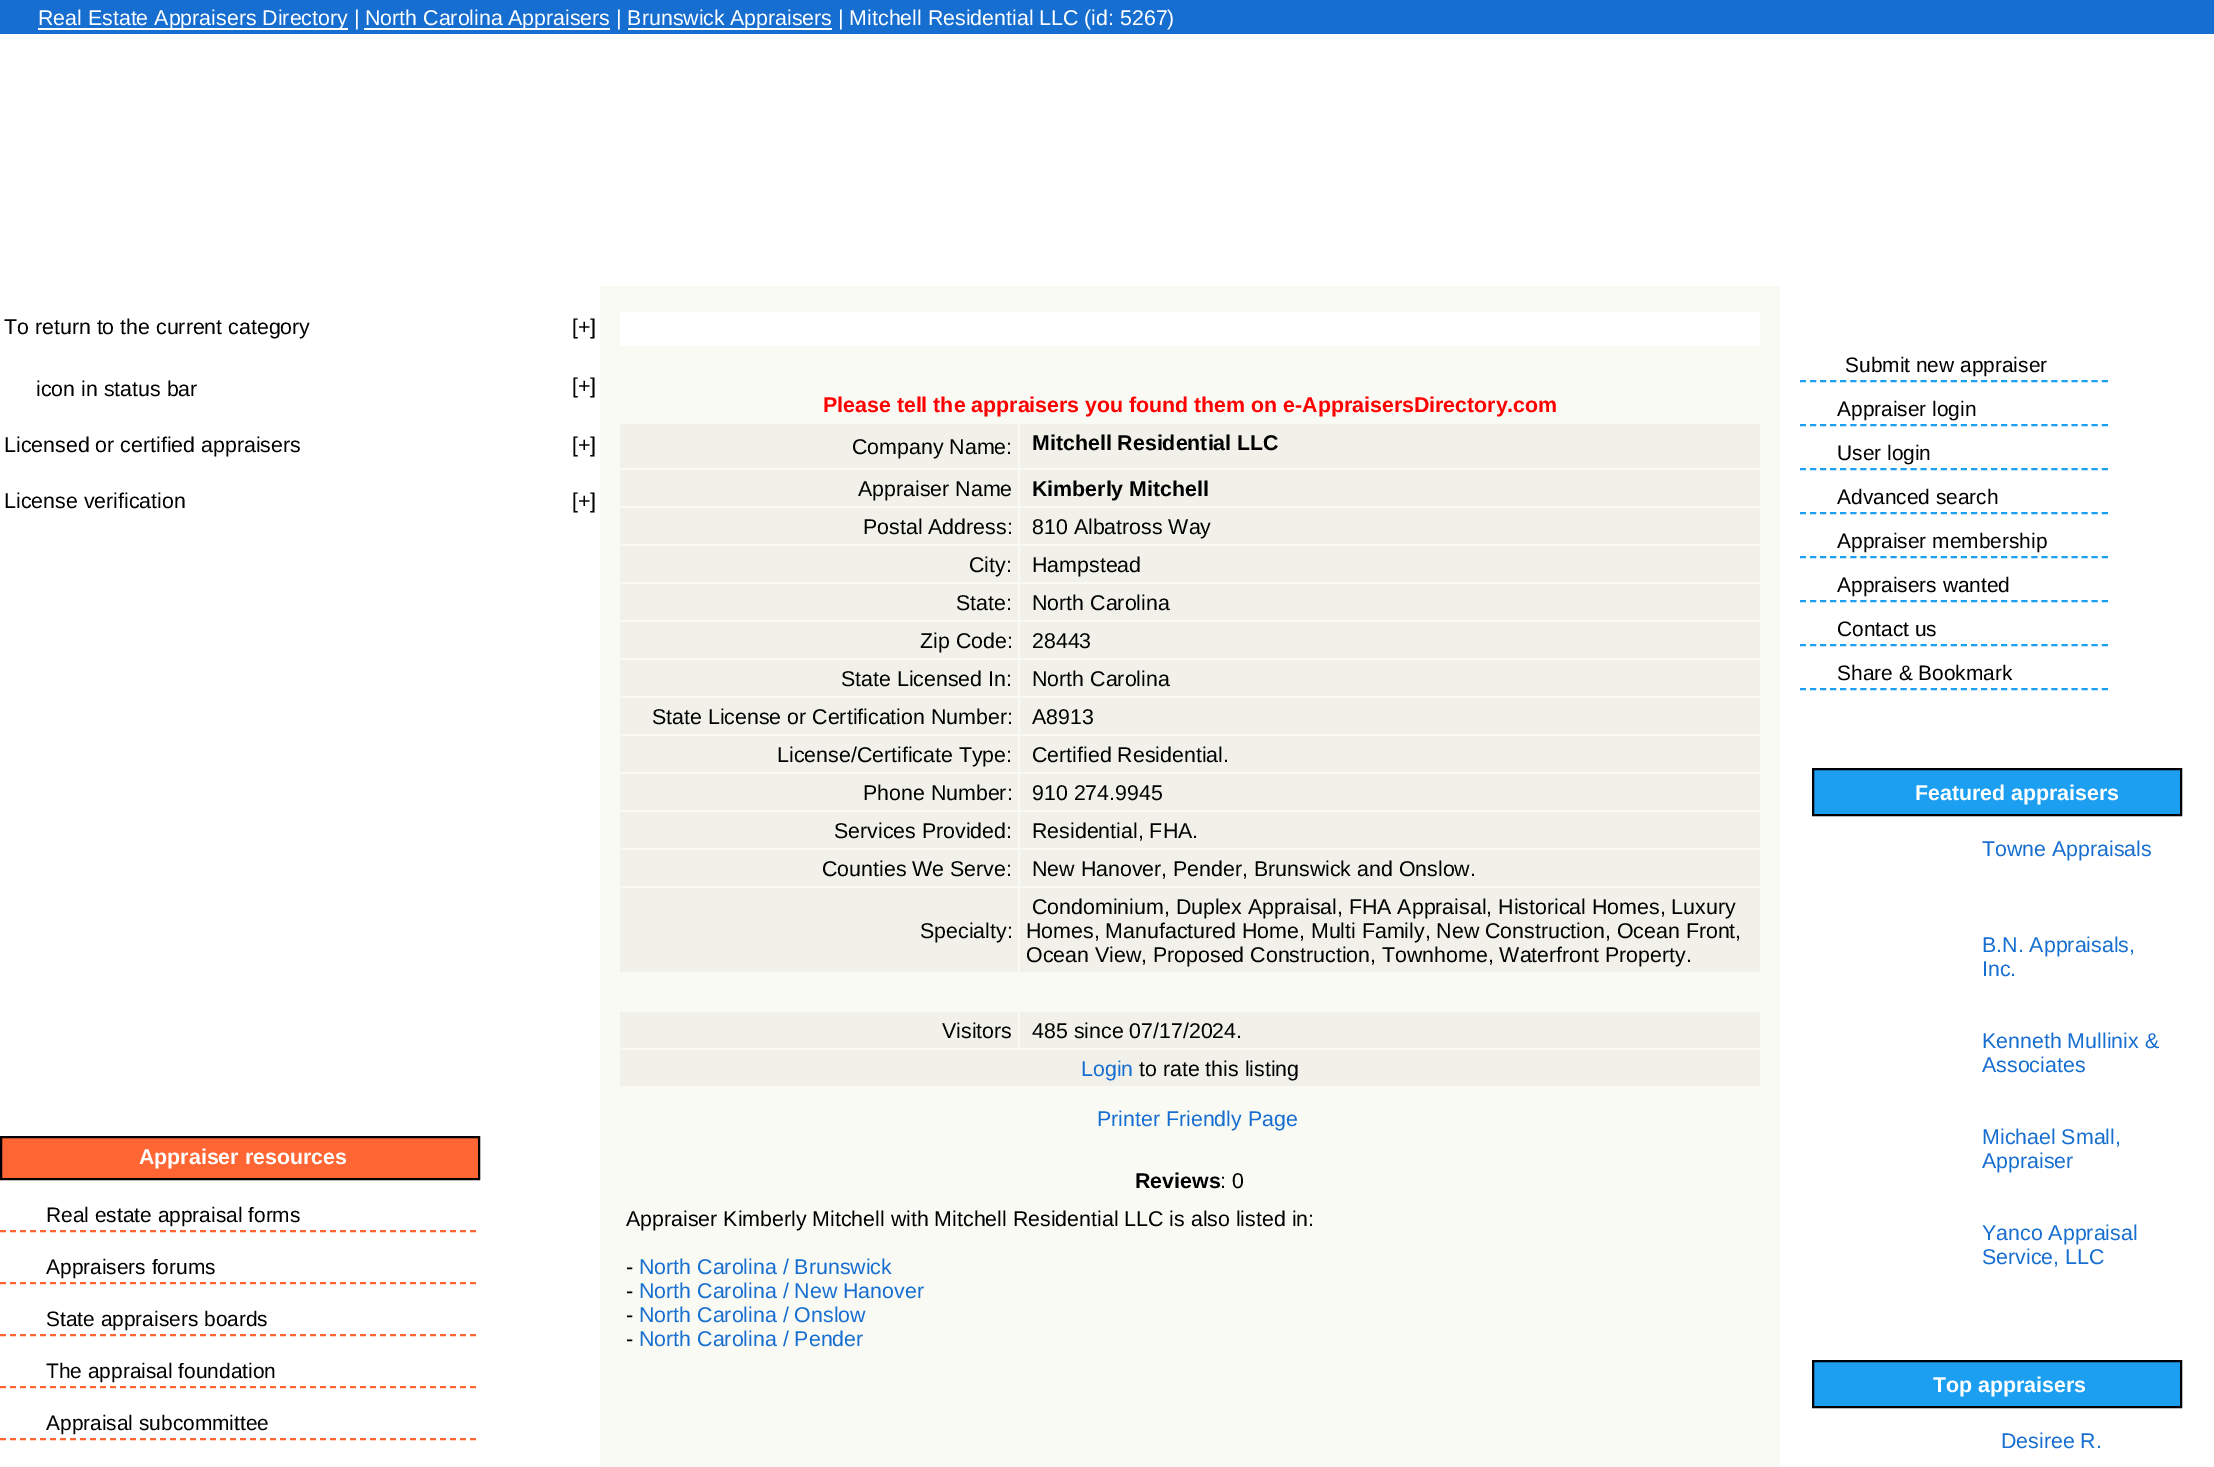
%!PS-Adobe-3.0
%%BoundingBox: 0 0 2214 1467
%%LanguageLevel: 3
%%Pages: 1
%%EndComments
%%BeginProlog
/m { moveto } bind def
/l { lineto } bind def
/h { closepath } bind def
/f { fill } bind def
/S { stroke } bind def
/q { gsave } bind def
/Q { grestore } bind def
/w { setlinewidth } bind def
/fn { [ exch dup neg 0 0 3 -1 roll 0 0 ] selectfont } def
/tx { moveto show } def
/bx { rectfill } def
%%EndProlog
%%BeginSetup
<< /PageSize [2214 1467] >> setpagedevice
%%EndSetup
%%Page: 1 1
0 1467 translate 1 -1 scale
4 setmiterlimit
1 setgray
0 0 2214 1467 bx
0.086 0.431 0.816 setrgbcolor
0 0 2214 34 bx
1 setgray
38 28 310 2 bx
/LiberationSans-Regular 21.35 fn
(Real Estate Appraisers Directory | North Carolina) 38 25 tx
364 28 246 2 bx
(Appraisers | Brunswick) 508 25 tx
628 28 204 2 bx
(Appraisers | Mitchell Residential LLC \(id: 5267\)) 730 25 tx
0 setgray
(To return to the current category) 4 334 tx
([+]) 572 334 tx
(icon in status bar) 36 396 tx
([+]) 572 393 tx
(Licensed or certified appraisers) 4 452 tx
([+]) 572 452 tx
(License verification) 4 508 tx
([+]) 572 508 tx
1 0.4 0.2 setrgbcolor
1 1137 m 479 1137 l 479 1179 l 1 1179 l h q f Q
0 setgray
2 w
S
/LiberationSans-Bold 21.35 fn
1 setgray
(Appraiser resources) 139 1164 tx
1 0.4 0.2 setrgbcolor
[6 4] 0 setdash
0 1231 m 476 1231 l S
/LiberationSans-Regular 20.9 fn
0 setgray
(Real estate appraisal forms) 46 1222 tx
1 0.4 0.2 setrgbcolor
0 1283 m 476 1283 l S
0 setgray
(Appraisers forums) 46 1274 tx
1 0.4 0.2 setrgbcolor
0 1335 m 476 1335 l S
0 setgray
(State appraisers boards) 46 1326 tx
1 0.4 0.2 setrgbcolor
0 1387 m 476 1387 l S
0 setgray
(The appraisal foundation) 46 1378 tx
1 0.4 0.2 setrgbcolor
0 1439 m 476 1439 l S
0 setgray
(Appraisal subcommittee) 46 1430 tx
0.98 0.98 0.957 setrgbcolor
600 286 1180 1181 bx
1 setgray
620 312 1140 34 bx
/LiberationSans-Bold 21.35 fn
1 0 0 setrgbcolor
(Please tell the appraisers you found them on e-AppraisersDirectory.com) 823 412 tx
0.945 0.945 0.918 setrgbcolor
620 424 398 44 bx
/LiberationSans-Regular 21.35 fn
0 setgray
(Company Name:) 852 454 tx
0.945 0.945 0.918 setrgbcolor
1020 424 740 44 bx
/LiberationSans-Bold 21.35 fn
0 setgray
(Mitchell Residential LLC) 1032 450 tx
0.945 0.945 0.918 setrgbcolor
620 470 398 36 bx
/LiberationSans-Regular 21.35 fn
0 setgray
(Appraiser Name) 858 496 tx
0.945 0.945 0.918 setrgbcolor
1020 470 740 36 bx
/LiberationSans-Bold 21.35 fn
0 setgray
(Kimberly Mitchell) 1032 496 tx
0.945 0.945 0.918 setrgbcolor
620 508 398 36 bx
/LiberationSans-Regular 21.35 fn
0 setgray
(Postal Address:) 863 534 tx
0.945 0.945 0.918 setrgbcolor
1020 508 740 36 bx
0 setgray
(810 Albatross Way) 1032 534 tx
0.945 0.945 0.918 setrgbcolor
620 546 398 36 bx
0 setgray
(City:) 969 572 tx
0.945 0.945 0.918 setrgbcolor
1020 546 740 36 bx
0 setgray
(Hampstead) 1032 572 tx
0.945 0.945 0.918 setrgbcolor
620 584 398 36 bx
0 setgray
(State:) 956 610 tx
0.945 0.945 0.918 setrgbcolor
1020 584 740 36 bx
0 setgray
(North Carolina) 1032 610 tx
0.945 0.945 0.918 setrgbcolor
620 622 398 36 bx
0 setgray
(Zip Code:) 920 648 tx
0.945 0.945 0.918 setrgbcolor
1020 622 740 36 bx
0 setgray
(28443) 1032 648 tx
0.945 0.945 0.918 setrgbcolor
620 660 398 36 bx
0 setgray
(State Licensed In:) 841 686 tx
0.945 0.945 0.918 setrgbcolor
1020 660 740 36 bx
0 setgray
(North Carolina) 1032 686 tx
0.945 0.945 0.918 setrgbcolor
620 698 398 36 bx
0 setgray
(State License or Certification Number:) 652 724 tx
0.945 0.945 0.918 setrgbcolor
1020 698 740 36 bx
0 setgray
(A8913) 1032 724 tx
0.945 0.945 0.918 setrgbcolor
620 736 398 36 bx
0 setgray
(License/Certificate Type:) 777 762 tx
0.945 0.945 0.918 setrgbcolor
1020 736 740 36 bx
0 setgray
(Certified Residential.) 1032 762 tx
0.945 0.945 0.918 setrgbcolor
620 774 398 36 bx
0 setgray
(Phone Number:) 863 800 tx
0.945 0.945 0.918 setrgbcolor
1020 774 740 36 bx
0 setgray
(910 274.9945) 1032 800 tx
0.945 0.945 0.918 setrgbcolor
620 812 398 36 bx
0 setgray
(Services Provided:) 834 838 tx
0.945 0.945 0.918 setrgbcolor
1020 812 740 36 bx
0 setgray
(Residential, FHA.) 1032 838 tx
0.945 0.945 0.918 setrgbcolor
620 850 398 36 bx
0 setgray
(Counties We Serve:) 822 876 tx
0.945 0.945 0.918 setrgbcolor
1020 850 740 36 bx
0 setgray
(New Hanover, Pender, Brunswick and Onslow.) 1032 876 tx
0.945 0.945 0.918 setrgbcolor
620 888 398 84 bx
0 setgray
(Specialty:) 920 938 tx
0.945 0.945 0.918 setrgbcolor
1020 888 740 84 bx
0 setgray
(Condominium, Duplex Appraisal, FHA Appraisal, Historical Homes, Luxury) 1032 914 tx
(Homes, Manufactured Home, Multi Family, New Construction, Ocean Front,) 1026 938 tx
(Ocean View, Proposed Construction, Townhome, Waterfront Property.) 1026 962 tx
0.945 0.945 0.918 setrgbcolor
620 1012 398 36 bx
0 setgray
(Visitors) 942 1038 tx
0.945 0.945 0.918 setrgbcolor
1020 1012 740 36 bx
0 setgray
(485 since 07/17/2024.) 1032 1038 tx
0.945 0.945 0.918 setrgbcolor
620 1050 1140 36 bx
0.086 0.431 0.816 setrgbcolor
(Login) 1081 1076 tx
0 setgray
(to rate this listing) 1139 1076 tx
0.086 0.431 0.816 setrgbcolor
(Printer Friendly Page) 1097 1126 tx
/LiberationSans-Bold 21.35 fn
0 setgray
(Reviews) 1135 1188 tx
/LiberationSans-Regular 21.35 fn
(: 0) 1220 1188 tx
(Appraiser Kimberly Mitchell with Mitchell Residential LLC is also listed in:) 626 1226 tx
(-) 626 1274 tx
0.086 0.431 0.816 setrgbcolor
(North Carolina / Brunswick) 639 1274 tx
0 setgray
(-) 626 1298 tx
0.086 0.431 0.816 setrgbcolor
(North Carolina / New Hanover) 639 1298 tx
0 setgray
(-) 626 1322 tx
0.086 0.431 0.816 setrgbcolor
(North Carolina / Onslow) 639 1322 tx
0 setgray
(-) 626 1346 tx
0.086 0.431 0.816 setrgbcolor
(North Carolina / Pender) 639 1346 tx
0.11 0.624 0.945 setrgbcolor
[6 4.06] 0 setdash
1800 381 m 2108 381 l S
/LiberationSans-Regular 20.9 fn
0 setgray
(Submit new appraiser) 1845 372 tx
0.11 0.624 0.945 setrgbcolor
1800 425 m 2108 425 l S
0 setgray
(Appraiser login) 1837 416 tx
0.11 0.624 0.945 setrgbcolor
1800 469 m 2108 469 l S
0 setgray
(User login) 1837 460 tx
0.11 0.624 0.945 setrgbcolor
1800 513 m 2108 513 l S
0 setgray
(Advanced search) 1837 504 tx
0.11 0.624 0.945 setrgbcolor
1800 557 m 2108 557 l S
0 setgray
(Appraiser membership) 1837 548 tx
0.11 0.624 0.945 setrgbcolor
1800 601 m 2108 601 l S
0 setgray
(Appraisers wanted) 1837 592 tx
0.11 0.624 0.945 setrgbcolor
1800 645 m 2108 645 l S
0 setgray
(Contact us) 1837 636 tx
0.11 0.624 0.945 setrgbcolor
1800 689 m 2108 689 l S
0 setgray
(Share & Bookmark) 1837 680 tx
0.11 0.624 0.945 setrgbcolor
1813 769 m 2181 769 l 2181 815 l 1813 815 l h q f Q
0 setgray
[] 0 setdash
S
/LiberationSans-Bold 21.35 fn
1 setgray
(Featured appraisers) 1915 800 tx
/LiberationSans-Regular 21.35 fn
0.086 0.431 0.816 setrgbcolor
(Towne Appraisals) 1982 856 tx
(B.N. Appraisals,) 1982 952 tx
(Inc.) 1982 976 tx
(Kenneth Mullinix &) 1982 1048 tx
(Associates) 1982 1072 tx
(Michael Small,) 1982 1144 tx
(Appraiser) 1982 1168 tx
(Yanco Appraisal) 1982 1240 tx
(Service, LLC) 1982 1264 tx
0.11 0.624 0.945 setrgbcolor
1813 1361 m 2181 1361 l 2181 1407 l 1813 1407 l h q f Q
0 setgray
S
/LiberationSans-Bold 21.35 fn
1 setgray
(Top appraisers) 1933 1392 tx
/LiberationSans-Regular 21.35 fn
0.086 0.431 0.816 setrgbcolor
(Desiree R.) 2001 1448 tx
showpage
%%EOF
